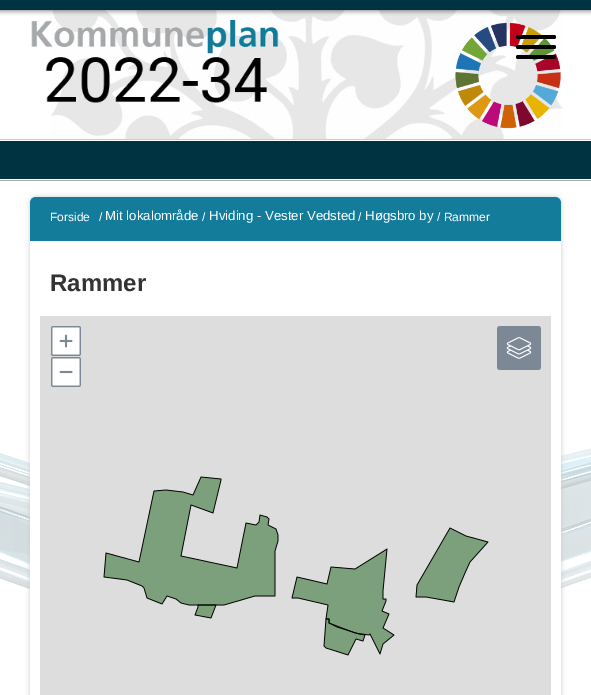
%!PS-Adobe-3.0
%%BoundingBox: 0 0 591 695
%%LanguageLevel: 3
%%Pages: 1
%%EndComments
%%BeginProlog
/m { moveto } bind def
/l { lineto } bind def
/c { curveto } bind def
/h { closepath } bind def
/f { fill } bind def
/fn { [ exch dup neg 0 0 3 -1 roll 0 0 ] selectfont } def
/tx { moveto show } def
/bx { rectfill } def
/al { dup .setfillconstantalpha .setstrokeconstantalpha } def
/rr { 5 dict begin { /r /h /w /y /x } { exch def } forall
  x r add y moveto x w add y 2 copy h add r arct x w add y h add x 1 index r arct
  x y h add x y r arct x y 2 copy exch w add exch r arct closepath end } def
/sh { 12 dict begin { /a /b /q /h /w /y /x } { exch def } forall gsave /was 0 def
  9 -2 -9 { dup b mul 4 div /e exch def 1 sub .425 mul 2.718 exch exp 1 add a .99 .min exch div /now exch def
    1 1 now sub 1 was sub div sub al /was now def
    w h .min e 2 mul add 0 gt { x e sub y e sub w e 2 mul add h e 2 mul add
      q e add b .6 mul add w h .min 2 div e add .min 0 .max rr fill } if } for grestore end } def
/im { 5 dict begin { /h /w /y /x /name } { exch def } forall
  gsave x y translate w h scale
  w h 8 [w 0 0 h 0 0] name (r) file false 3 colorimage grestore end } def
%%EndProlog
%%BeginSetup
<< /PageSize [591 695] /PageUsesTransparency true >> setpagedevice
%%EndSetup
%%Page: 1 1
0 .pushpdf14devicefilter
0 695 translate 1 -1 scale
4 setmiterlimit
1 setgray
0 0 591 695 bx
(image0.raw) 0 0 591 16 im
0.8 setgray
0 139 591 1 bx
(image1.raw) 51 10 512 129 im
(image2.raw) 31 20 248 83 im
0 0.2 0.259 setrgbcolor
0 141 591 38 bx
0.667 setgray
0 180 591 1 bx
0 setgray
516 35 40 4 2 rr f
516 45 40 4 2 rr f
516 55 40 4 2 rr f
(image3.raw) 0 448 591 141 im
0.8 setgray
30 197 531 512 6 2.5 1 sh
1 setgray
30 197 531 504 6 rr f
0.075 0.486 0.604 setrgbcolor
36 197 m 555 197 l 558.5 197 561 199.5 561 203 c 561 241 l 30 241 l 30 203 l 30 199.5 32.5 197 36 197 c h f
/LiberationSans-Regular 12 fn
1 setgray
(Forside) 50 221 tx
(/) 99 221 tx
/LiberationSans-Regular 13.25 fn
(Mit lokalområde) 105 220 tx
/LiberationSans-Regular 12 fn
(/) 202 221 tx
/LiberationSans-Regular 13.25 fn
(Hviding - Vester Vedsted) 209 220 tx
/LiberationSans-Regular 12 fn
(/) 358 221 tx
/LiberationSans-Regular 13.25 fn
(Høgsbro by) 365 220 tx
/LiberationSans-Regular 12 fn
(/ Rammer) 437 221 tx
/LiberationSans-Bold 24 fn
0.2 setgray
(Rammer) 50 291 tx
0.867 setgray
40 316 511 379 bx
0.8 setgray
50 355 30 1 bx
(image4.raw) 51 326 30 30 im
(image5.raw) 51 357 30 30 im
(image6.raw) 497 326 44 44 im
(image7.raw) 103 476 386 180 im
.poppdf14devicefilter showpage
%%EOF
